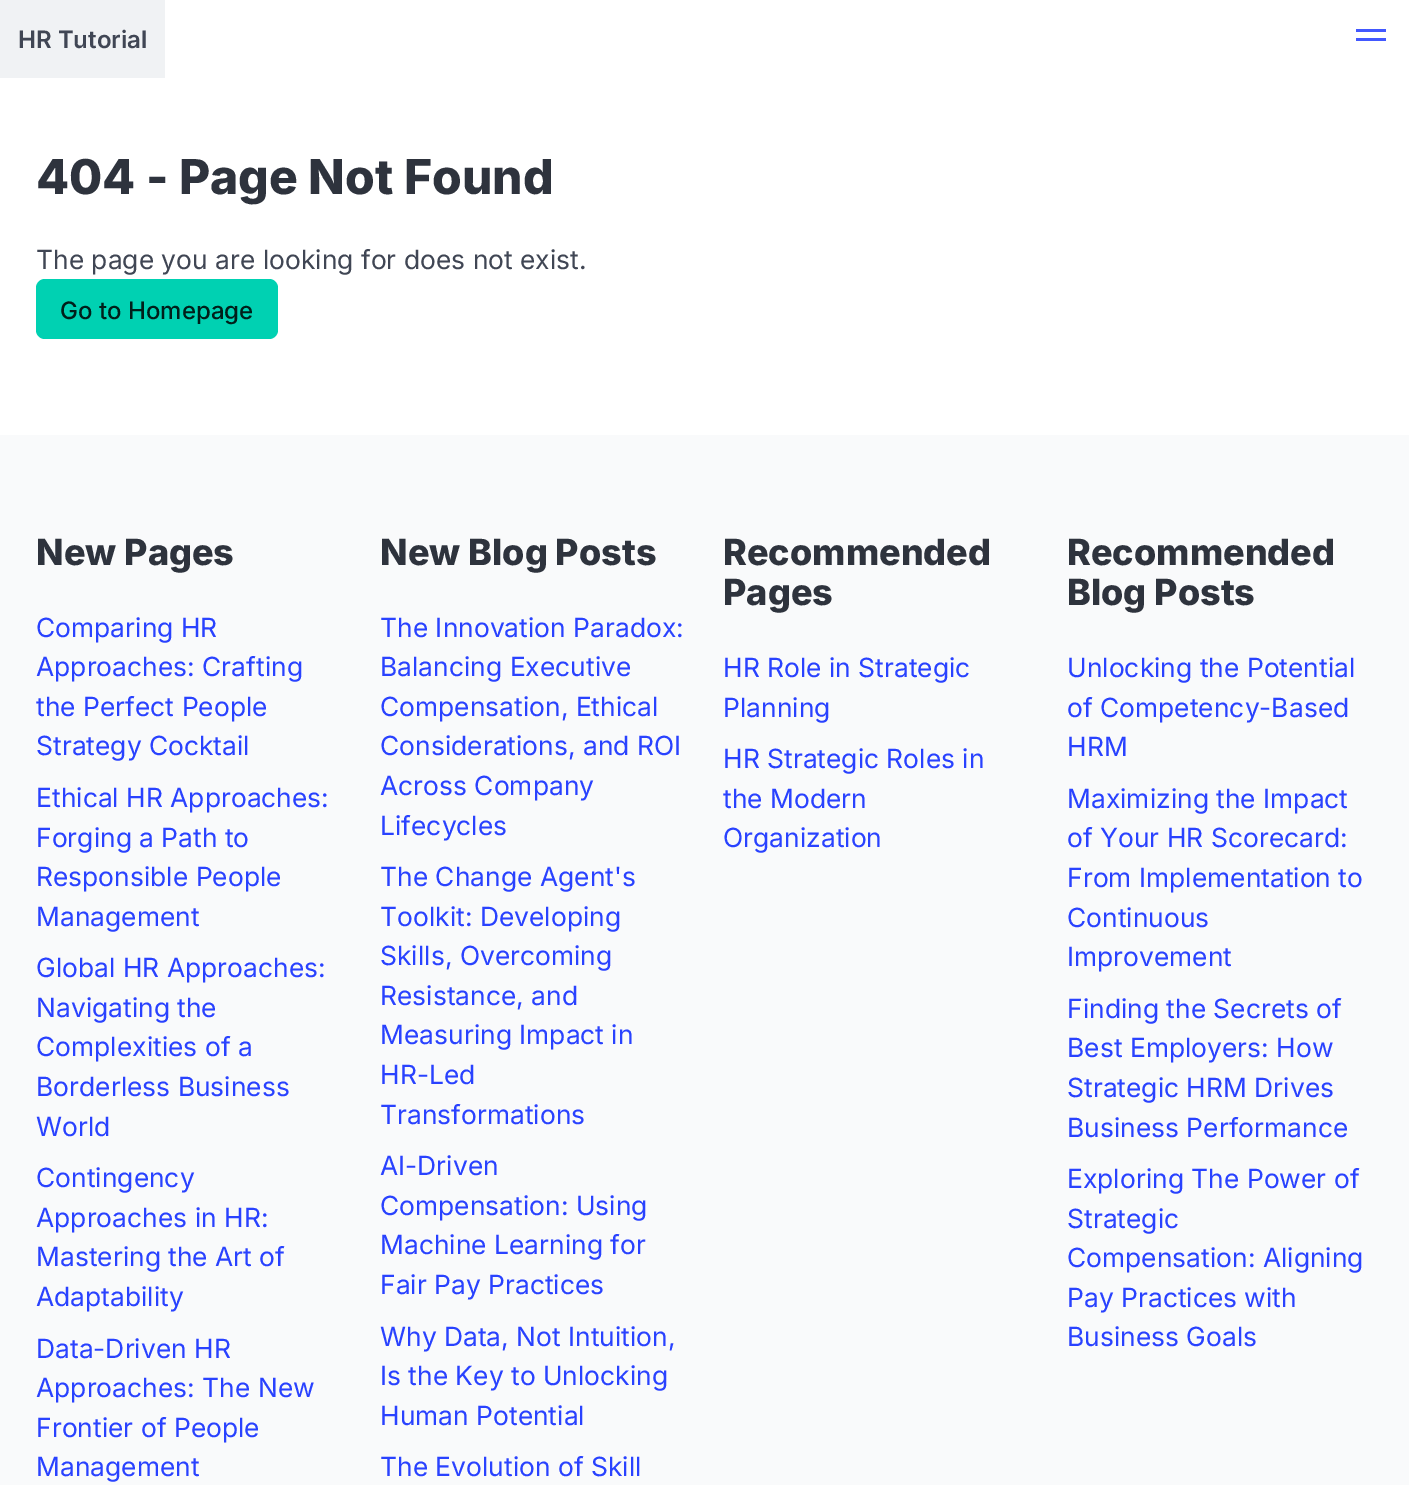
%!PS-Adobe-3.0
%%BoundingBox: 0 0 1409 1485
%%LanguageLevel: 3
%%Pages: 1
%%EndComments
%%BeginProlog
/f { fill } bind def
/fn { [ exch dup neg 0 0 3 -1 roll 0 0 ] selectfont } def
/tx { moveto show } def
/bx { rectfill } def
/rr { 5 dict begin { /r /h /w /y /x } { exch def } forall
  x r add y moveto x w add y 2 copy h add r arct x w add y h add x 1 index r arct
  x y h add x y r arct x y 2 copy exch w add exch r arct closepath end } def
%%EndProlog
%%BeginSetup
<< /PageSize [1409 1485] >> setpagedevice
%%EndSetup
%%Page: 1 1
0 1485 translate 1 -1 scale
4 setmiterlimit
1 setgray
0 0 1409 1485 bx
0.941 0.949 0.957 setrgbcolor
0 0 165 78 bx
/Inter-SemiBold 24 fn
0.251 0.275 0.329 setrgbcolor
(HR Tutorial) 18 48 tx
0.259 0.345 1 setrgbcolor
1356 29 30 3 bx
1356 38 30 3 bx
/Inter-ExtraBold 48 fn
0.18 0.2 0.239 setrgbcolor
(404 - Page Not Found) 36 194 tx
/Inter-Regular 26.4 fn
0.251 0.275 0.329 setrgbcolor
(The page you are looking for does not exist.) 36 269 tx
0 0.82 0.698 setrgbcolor
36 279 242 60 9 rr f
/Inter-Medium 24 fn
0 0.122 0.102 setrgbcolor
(Go to Homepage) 60 319 tx
0.976 0.98 0.984 setrgbcolor
0 435 1409 1050 bx
/Inter-ExtraBold 36 fn
0.18 0.2 0.239 setrgbcolor
(New Pages) 36 565 tx
/Inter-Regular 26.4 fn
0.161 0.259 1 setrgbcolor
(Comparing HR) 36 637 tx
(Approaches: Crafting) 36 676 tx
(the Perfect People) 36 716 tx
(Strategy Cocktail) 36 755 tx
(Ethical HR Approaches:) 36 807 tx
(Forging a Path to) 36 847 tx
(Responsible People) 36 886 tx
(Management) 36 926 tx
(Global HR Approaches:) 36 977 tx
(Navigating the) 36 1017 tx
(Complexities of a) 36 1056 tx
(Borderless Business) 36 1096 tx
(World) 36 1136 tx
(Contingency) 36 1187 tx
(Approaches in HR:) 36 1227 tx
(Mastering the Art of) 36 1266 tx
(Adaptability) 36 1306 tx
(Data-Driven HR) 36 1358 tx
(Approaches: The New) 36 1397 tx
(Frontier of People) 36 1437 tx
(Management) 36 1476 tx
/Inter-ExtraBold 36 fn
0.18 0.2 0.239 setrgbcolor
(New Blog Posts) 380 565 tx
/Inter-Regular 26.4 fn
0.161 0.259 1 setrgbcolor
(The Innovation Paradox:) 380 637 tx
(Balancing Executive) 380 676 tx
(Compensation, Ethical) 380 716 tx
(Considerations, and ROI) 380 755 tx
(Across Company) 380 795 tx
(Lifecycles) 380 835 tx
(The Change Agent's) 380 886 tx
(Toolkit: Developing) 380 926 tx
(Skills, Overcoming) 380 965 tx
(Resistance, and) 380 1005 tx
(Measuring Impact in) 380 1044 tx
(HR-Led) 380 1084 tx
(Transformations) 380 1124 tx
(AI-Driven) 380 1175 tx
(Compensation: Using) 380 1215 tx
(Machine Learning for) 380 1254 tx
(Fair Pay Practices) 380 1294 tx
(Why Data, Not Intuition,) 380 1346 tx
(Is the Key to Unlocking) 380 1385 tx
(Human Potential) 380 1425 tx
(The Evolution of Skill) 380 1476 tx
/Inter-ExtraBold 36 fn
0.18 0.2 0.239 setrgbcolor
(Recommended) 723 565 tx
(Pages) 723 605 tx
/Inter-Regular 26.4 fn
0.161 0.259 1 setrgbcolor
(HR Role in Strategic) 723 677 tx
(Planning) 723 717 tx
(HR Strategic Roles in) 723 768 tx
(the Modern) 723 808 tx
(Organization) 723 847 tx
/Inter-ExtraBold 36 fn
0.18 0.2 0.239 setrgbcolor
(Recommended) 1067 565 tx
(Blog Posts) 1067 605 tx
/Inter-Regular 26.4 fn
0.161 0.259 1 setrgbcolor
(Unlocking the Potential) 1067 677 tx
(of Competency-Based) 1067 717 tx
(HRM) 1067 756 tx
(Maximizing the Impact) 1067 808 tx
(of Your HR Scorecard:) 1067 847 tx
(From Implementation to) 1067 887 tx
(Continuous) 1067 927 tx
(Improvement) 1067 966 tx
(Finding the Secrets of) 1067 1018 tx
(Best Employers: How) 1067 1057 tx
(Strategic HRM Drives) 1067 1097 tx
(Business Performance) 1067 1137 tx
(Exploring The Power of) 1067 1188 tx
(Strategic) 1067 1228 tx
(Compensation: Aligning) 1067 1267 tx
(Pay Practices with) 1067 1307 tx
(Business Goals) 1067 1346 tx
showpage
%%EOF
